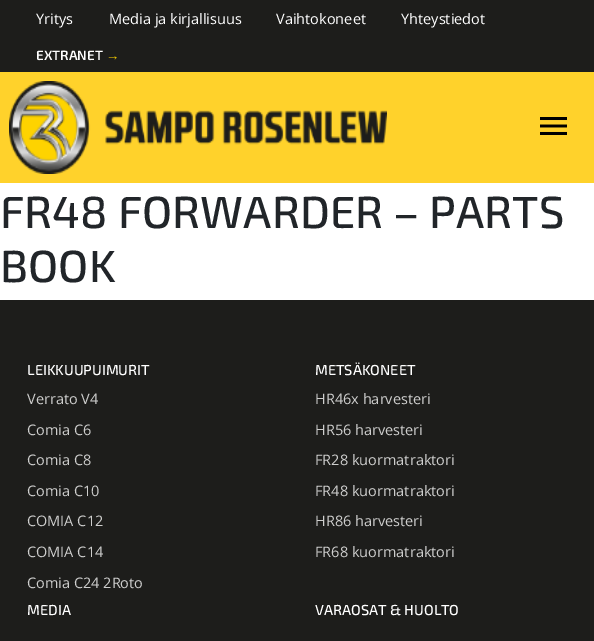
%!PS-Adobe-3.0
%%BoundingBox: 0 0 594 641
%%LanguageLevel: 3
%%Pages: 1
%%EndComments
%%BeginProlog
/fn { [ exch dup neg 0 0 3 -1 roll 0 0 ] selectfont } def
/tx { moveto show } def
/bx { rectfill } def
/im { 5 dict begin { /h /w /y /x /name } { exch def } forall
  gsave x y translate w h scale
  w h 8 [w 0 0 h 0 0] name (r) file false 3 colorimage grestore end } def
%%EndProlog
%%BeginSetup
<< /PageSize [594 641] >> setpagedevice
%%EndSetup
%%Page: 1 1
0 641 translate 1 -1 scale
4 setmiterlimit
1 setgray
0 0 594 641 bx
0.114 0.114 0.106 setrgbcolor
0 0 594 72 bx
/OpenSans-Regular 14.5 fn
1 setgray
(Yritys) 36 24 tx
(Media ja kirjallisuus) 109 24 tx
(Vaihtokoneet) 276 24 tx
(Yhteystiedot) 401 24 tx
/Exo2-SemiBold 13.5 fn
(EXTRANET) 36 60 tx
/LiberationSerif-Bold 13.5 fn
0.996 0.827 0 setrgbcolor
(→) 106 60 tx
1 0.824 0.169 setrgbcolor
0 72 594 111 bx
(image0.raw) 9 81 378 93 im
(image1.raw) 540 117 27 18 im
/Exo2-Medium 45 fn
0.129 0.145 0.161 setrgbcolor
(FR48 FORWARDER – PARTS) 0 228 tx
(BOOK) 0 282 tx
0.114 0.114 0.106 setrgbcolor
0 300 594 341 bx
/Exo2-Medium 14.5 fn
1 setgray
(LEIKKUUPUIMURIT) 27 375 tx
/OpenSans-Regular 14.5 fn
0.808 0.808 0.804 setrgbcolor
(Verrato V4) 27 404 tx
(Comia C6) 27 435 tx
(Comia C8) 27 465 tx
(Comia C10) 27 496 tx
(COMIA C12) 27 526 tx
(COMIA C14) 27 557 tx
(Comia C24 2Roto) 27 588 tx
/Exo2-Medium 14.5 fn
1 setgray
(METSÄKONEET) 315 375 tx
/OpenSans-Regular 14.5 fn
0.808 0.808 0.804 setrgbcolor
(HR46x harvesteri) 315 404 tx
(HR56 harvesteri) 315 435 tx
(FR28 kuormatraktori) 315 465 tx
(FR48 kuormatraktori) 315 496 tx
(HR86 harvesteri) 315 526 tx
(FR68 kuormatraktori) 315 557 tx
/Exo2-Medium 14.5 fn
1 setgray
(MEDIA) 27 615 tx
(VARAOSAT & HUOLTO) 315 615 tx
showpage
%%EOF
